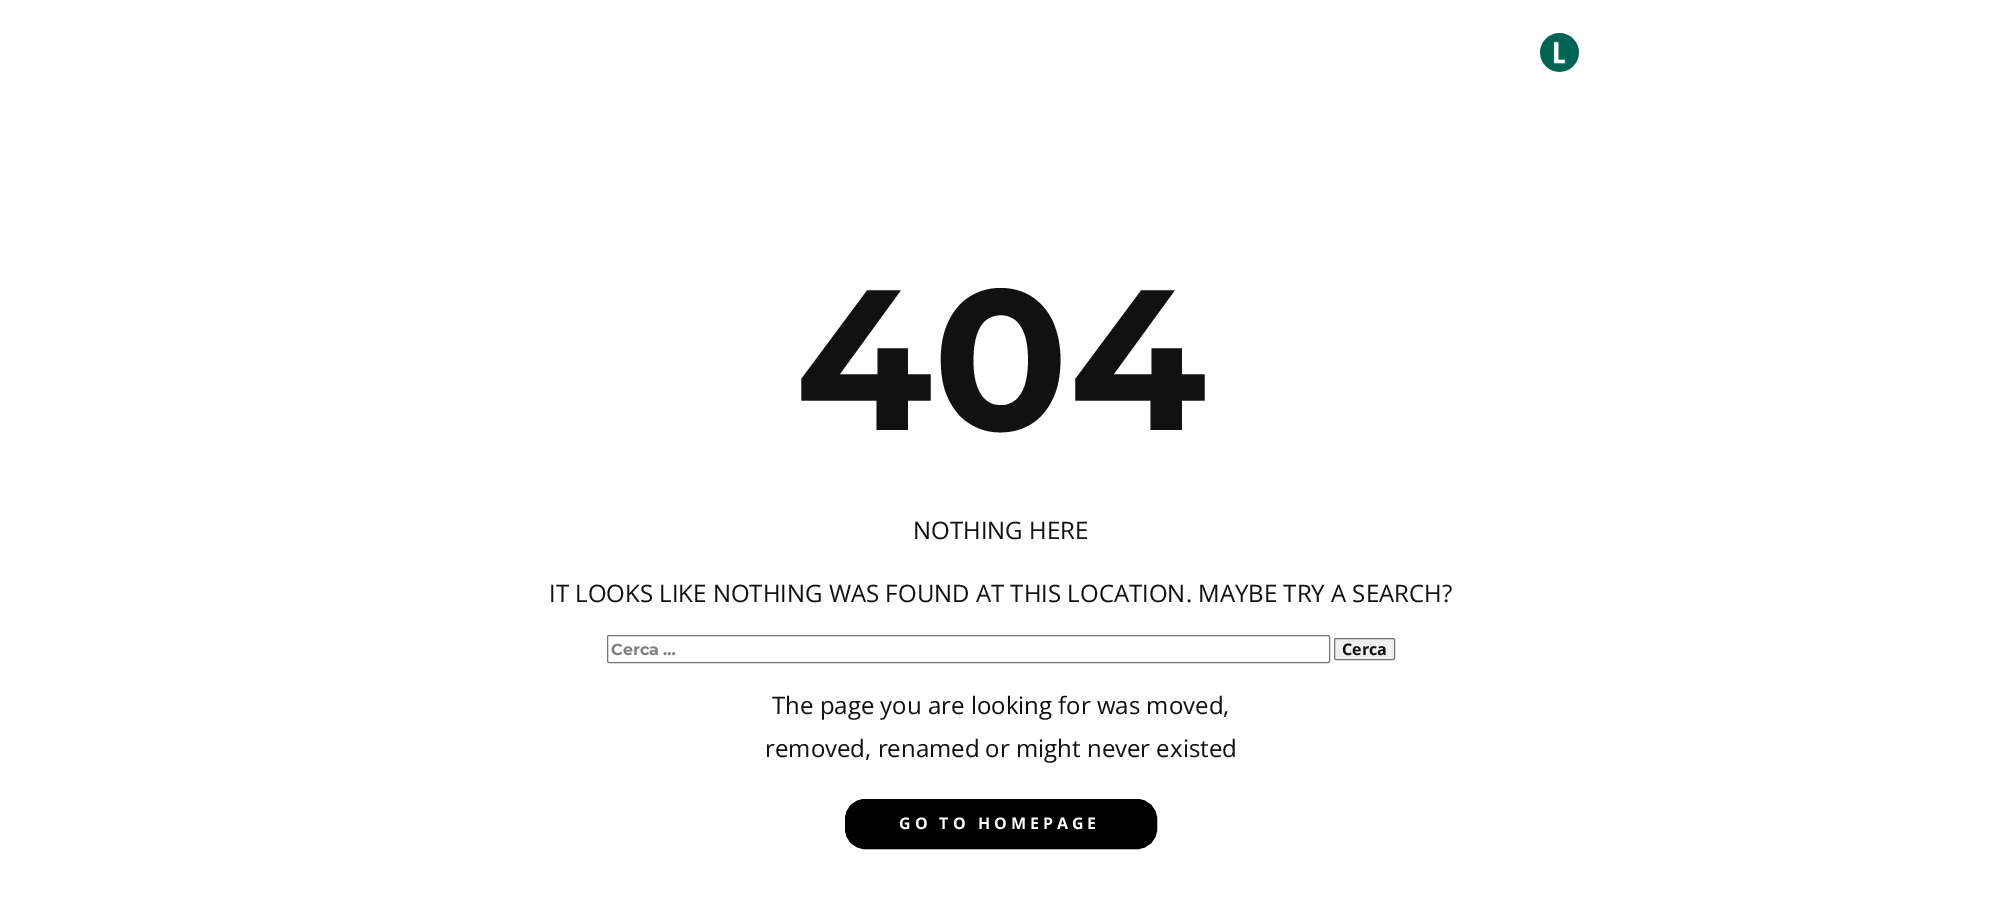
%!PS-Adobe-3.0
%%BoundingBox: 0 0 2002 900
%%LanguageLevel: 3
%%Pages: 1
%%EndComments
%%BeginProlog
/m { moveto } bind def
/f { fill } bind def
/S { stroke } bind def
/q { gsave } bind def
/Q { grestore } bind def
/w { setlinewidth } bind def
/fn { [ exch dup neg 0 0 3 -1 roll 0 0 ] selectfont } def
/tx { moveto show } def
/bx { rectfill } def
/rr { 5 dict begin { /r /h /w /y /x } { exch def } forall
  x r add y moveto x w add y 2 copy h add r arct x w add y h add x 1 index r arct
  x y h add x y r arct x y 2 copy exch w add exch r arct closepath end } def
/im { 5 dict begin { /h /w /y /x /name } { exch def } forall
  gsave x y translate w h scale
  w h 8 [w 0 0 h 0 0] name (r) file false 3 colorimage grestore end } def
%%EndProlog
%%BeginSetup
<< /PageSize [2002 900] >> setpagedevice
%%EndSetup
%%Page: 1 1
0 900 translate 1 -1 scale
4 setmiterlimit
1 setgray
0 0 2002 900 bx
(image0.raw) 1539 33 41 39 im
/Montserrat-Bold 200 fn
0.067 setgray
(404) 795 430 tx
/OpenSans-Regular 24 fn
(NOTHING HERE) 913 539 tx
(IT LOOKS LIKE NOTHING WAS FOUND AT THIS LOCATION. MAYBE TRY A SEARCH?) 549 602 tx
0.463 setgray
607.5 635.5 722 27 1.5 rr S
/Montserrat-Bold 16 fn
0.494 setgray
(Cerca …) 611 655 tx
0.937 setgray
1334.5 638.5 60 21 1.5 rr q f Q
0.463 setgray
S
/OpenSans-Bold 16 fn
0.067 setgray
(Cerca) 1342 655 tx
/OpenSans-Regular 24 fn
(The page you are looking for was moved,) 772 714 tx
(removed, renamed or might never existed) 765 757 tx
0 setgray
846 800 310 48 19 rr q f Q
2 w
S
/OpenSans-Bold 16 fn
1 setgray
899 829 m 4 0 (GO TO HOMEPAGE) ashow
showpage
%%EOF
